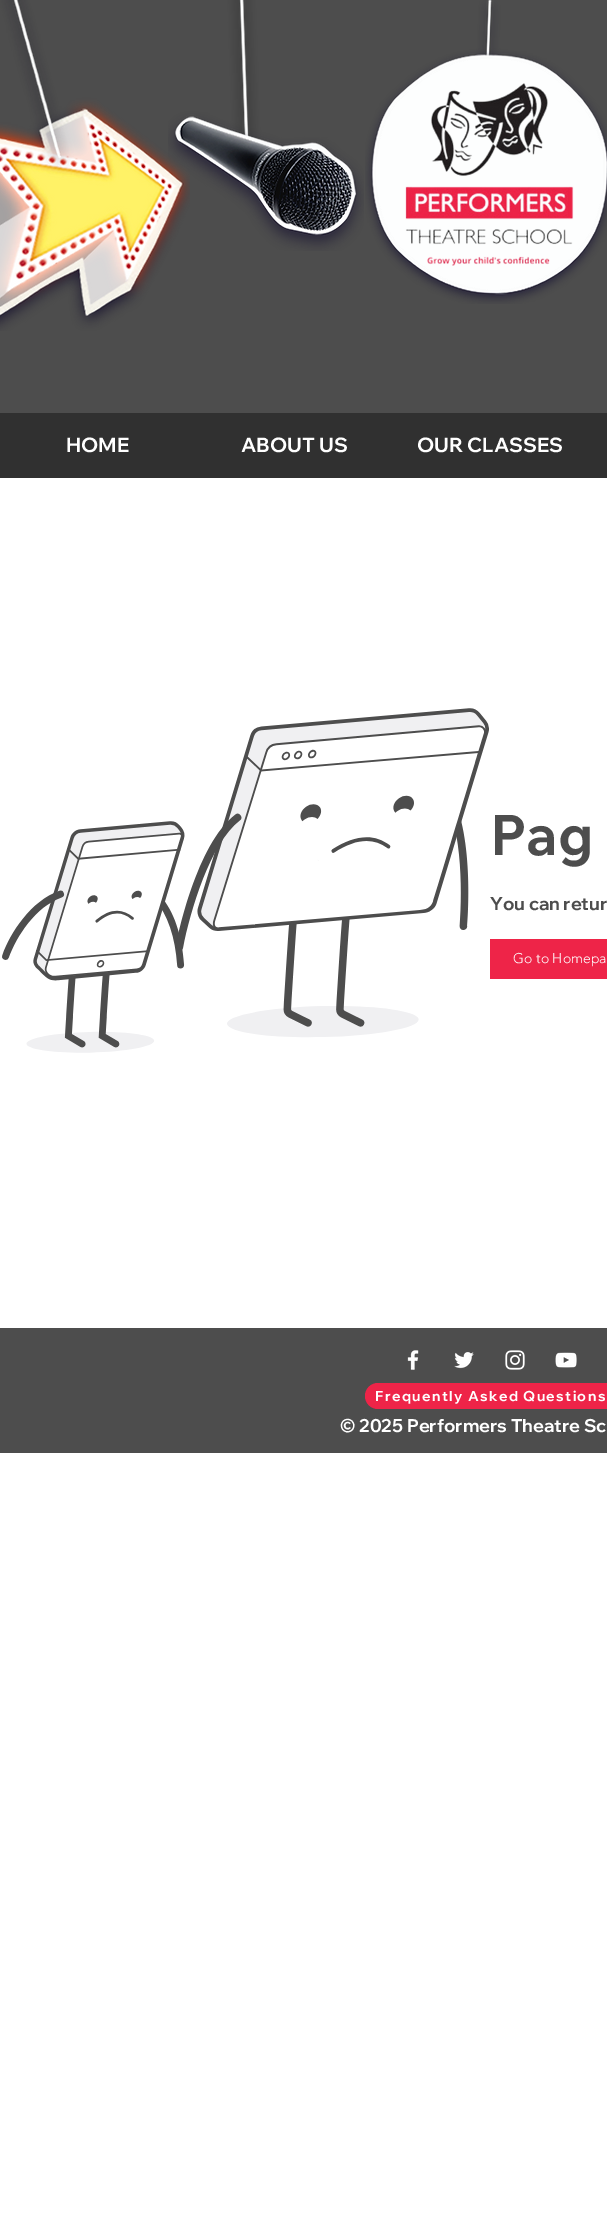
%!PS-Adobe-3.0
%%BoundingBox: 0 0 607 2234
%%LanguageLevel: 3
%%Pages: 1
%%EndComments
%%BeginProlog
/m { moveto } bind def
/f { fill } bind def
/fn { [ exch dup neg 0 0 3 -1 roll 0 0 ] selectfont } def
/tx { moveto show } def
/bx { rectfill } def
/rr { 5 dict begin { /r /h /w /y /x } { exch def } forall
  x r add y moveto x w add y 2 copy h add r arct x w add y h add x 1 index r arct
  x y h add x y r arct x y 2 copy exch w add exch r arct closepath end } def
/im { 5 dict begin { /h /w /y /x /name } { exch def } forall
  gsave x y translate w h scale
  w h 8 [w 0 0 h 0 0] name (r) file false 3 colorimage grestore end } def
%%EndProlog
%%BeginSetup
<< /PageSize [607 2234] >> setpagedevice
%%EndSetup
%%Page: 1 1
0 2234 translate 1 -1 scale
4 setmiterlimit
1 setgray
0 0 607 2234 bx
0.188 setgray
0 413 607 65 bx
0.302 setgray
0 0 607 413 bx
(image0.raw) 0 0 190 331 im
(image1.raw) 168 0 196 251 im
(image2.raw) 365 0 242 304 im
(image3.raw) 405 83 169 183 im
/WixMadeforDisplay-Bold 20 fn
1 setgray
(HOME) 66 452 tx
(ABOUT US) 241 452 tx
(OUR CLASSES) 417 452 tx
(image4.raw) 2 708 487 345 im
/WixMadeforText-Bold 56 fn
0.302 setgray
(Pag) 490 855 tx
/WixMadeforDisplay-Bold 18 fn
(You can retur) 490 910 tx
0.933 0.141 0.282 setrgbcolor
490 939 117 40 bx
/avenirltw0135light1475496-Light 14 fn
1 setgray
(Go to Homepa) 513 963 tx
0.302 setgray
0 1328 607 125 bx
(image5.raw) 407 1350 12 20 im
(image6.raw) 454 1352 20 17 im
(image7.raw) 505 1350 20 20 im
(image8.raw) 555 1352 22 16 im
0.933 0.141 0.282 setrgbcolor
365 1383 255 26 13 rr f
/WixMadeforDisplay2-Bold 14 fn
1 setgray
375 1401 m 1.4 0 (Frequently Asked Questions) ashow
/WixMadeforDisplay-Bold 18 fn
(© 2025 Performers Theatre Sc) 340 1432 tx
showpage
%%EOF
